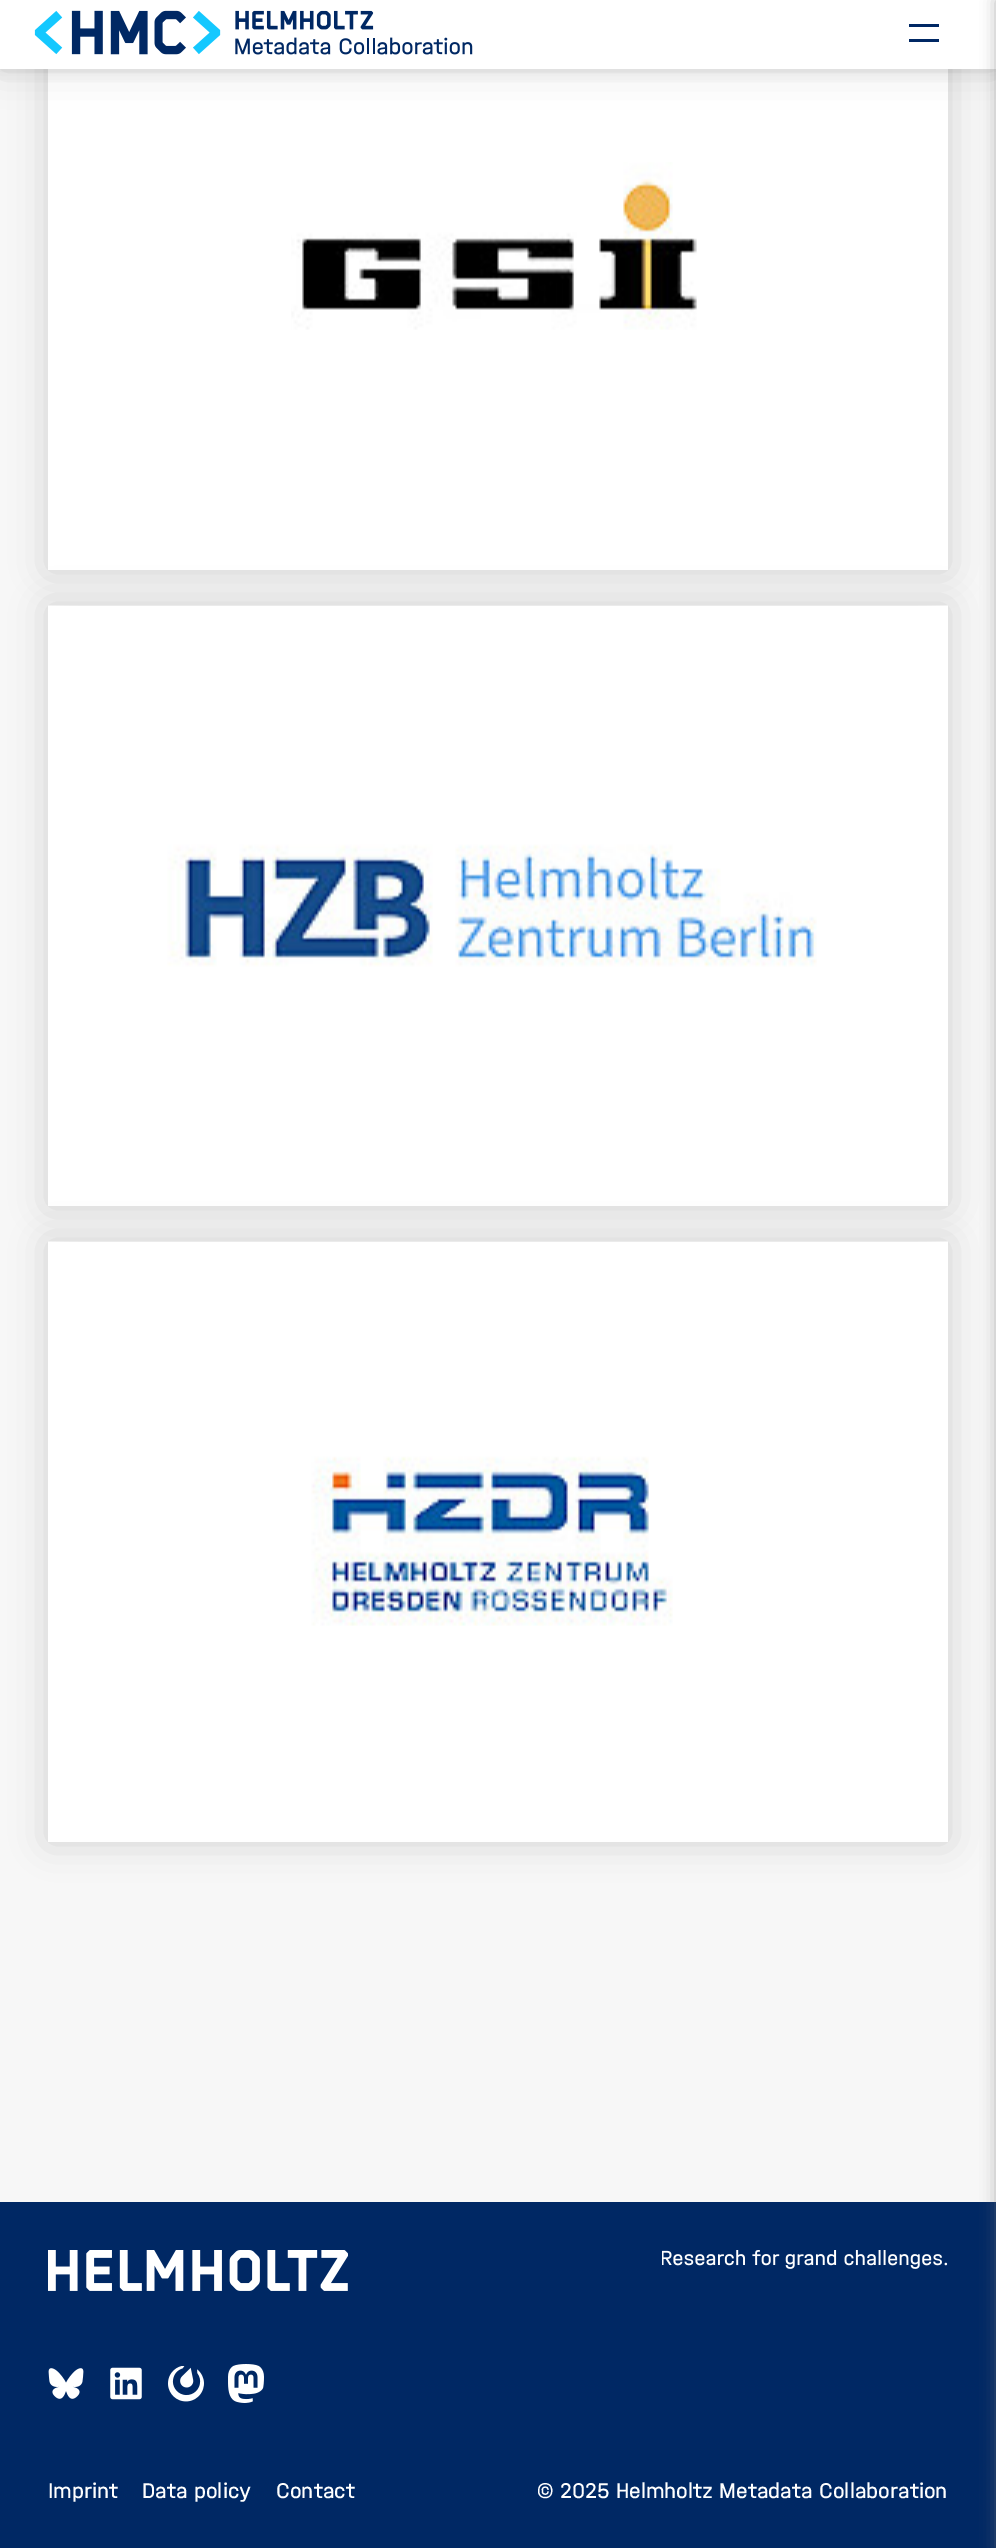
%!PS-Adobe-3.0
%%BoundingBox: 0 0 996 2548
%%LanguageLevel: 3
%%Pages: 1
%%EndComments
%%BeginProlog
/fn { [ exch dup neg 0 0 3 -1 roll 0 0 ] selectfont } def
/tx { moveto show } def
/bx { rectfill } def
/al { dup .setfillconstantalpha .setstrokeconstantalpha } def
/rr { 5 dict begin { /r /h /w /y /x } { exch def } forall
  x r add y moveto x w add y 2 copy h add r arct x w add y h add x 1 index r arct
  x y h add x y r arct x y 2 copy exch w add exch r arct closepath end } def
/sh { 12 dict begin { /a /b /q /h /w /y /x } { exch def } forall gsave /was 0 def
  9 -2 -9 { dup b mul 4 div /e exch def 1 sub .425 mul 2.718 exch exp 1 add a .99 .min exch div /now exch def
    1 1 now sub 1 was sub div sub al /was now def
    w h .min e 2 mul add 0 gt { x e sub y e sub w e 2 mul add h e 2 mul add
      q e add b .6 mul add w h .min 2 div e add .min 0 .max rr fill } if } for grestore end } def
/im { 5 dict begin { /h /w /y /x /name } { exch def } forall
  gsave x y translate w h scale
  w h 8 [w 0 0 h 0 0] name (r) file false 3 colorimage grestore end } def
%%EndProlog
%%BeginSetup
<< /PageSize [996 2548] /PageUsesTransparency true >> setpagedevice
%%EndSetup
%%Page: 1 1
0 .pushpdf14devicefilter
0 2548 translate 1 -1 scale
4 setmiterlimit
0 0.157 0.392 setrgbcolor
0 0 996 2548 bx
0.969 setgray
0 69 996 2133 bx
0 setgray
48 -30 900 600 0 18 0.15 sh
1 setgray
48 69 900 501 bx
(image0.raw) 291 162 406 168 im
0 setgray
48 606 900 600 0 18 0.15 sh
1 setgray
48 967 900 239 bx
(image1.raw) 48 605 900 362 im
0 setgray
48 1242 900 600 0 18 0.15 sh
1 setgray
48 1626 900 216 bx
(image2.raw) 48 1241 900 385 im
0.459 setgray
0 -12 996 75 0 7.5 0.5 sh
0 setgray
0 -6 996 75 0 18 0.15 sh
1 setgray
0 0 996 69 bx
(image3.raw) 34 10 439 45 im
0 0.157 0.392 setrgbcolor
909 24 30 3 bx
909 39 30 3 bx
0.459 setgray
996 0 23 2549 0 7.5 0.5 sh
(image4.raw) 48 2250 300 41 im
(image5.raw) 662 2250 286 19 im
(image6.raw) 48 2368 36 31 im
(image7.raw) 110 2367 32 33 im
(image8.raw) 168 2366 36 36 im
(image9.raw) 228 2364 36 39 im
/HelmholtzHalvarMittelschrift-Regular 22.5 fn
1 setgray
(Imprint) 48 2498 tx
(Data policy) 142 2498 tx
(Contact) 276 2498 tx
(© 2025 Helmholtz Metadata Collaboration) 537 2498 tx
.poppdf14devicefilter showpage
%%EOF
